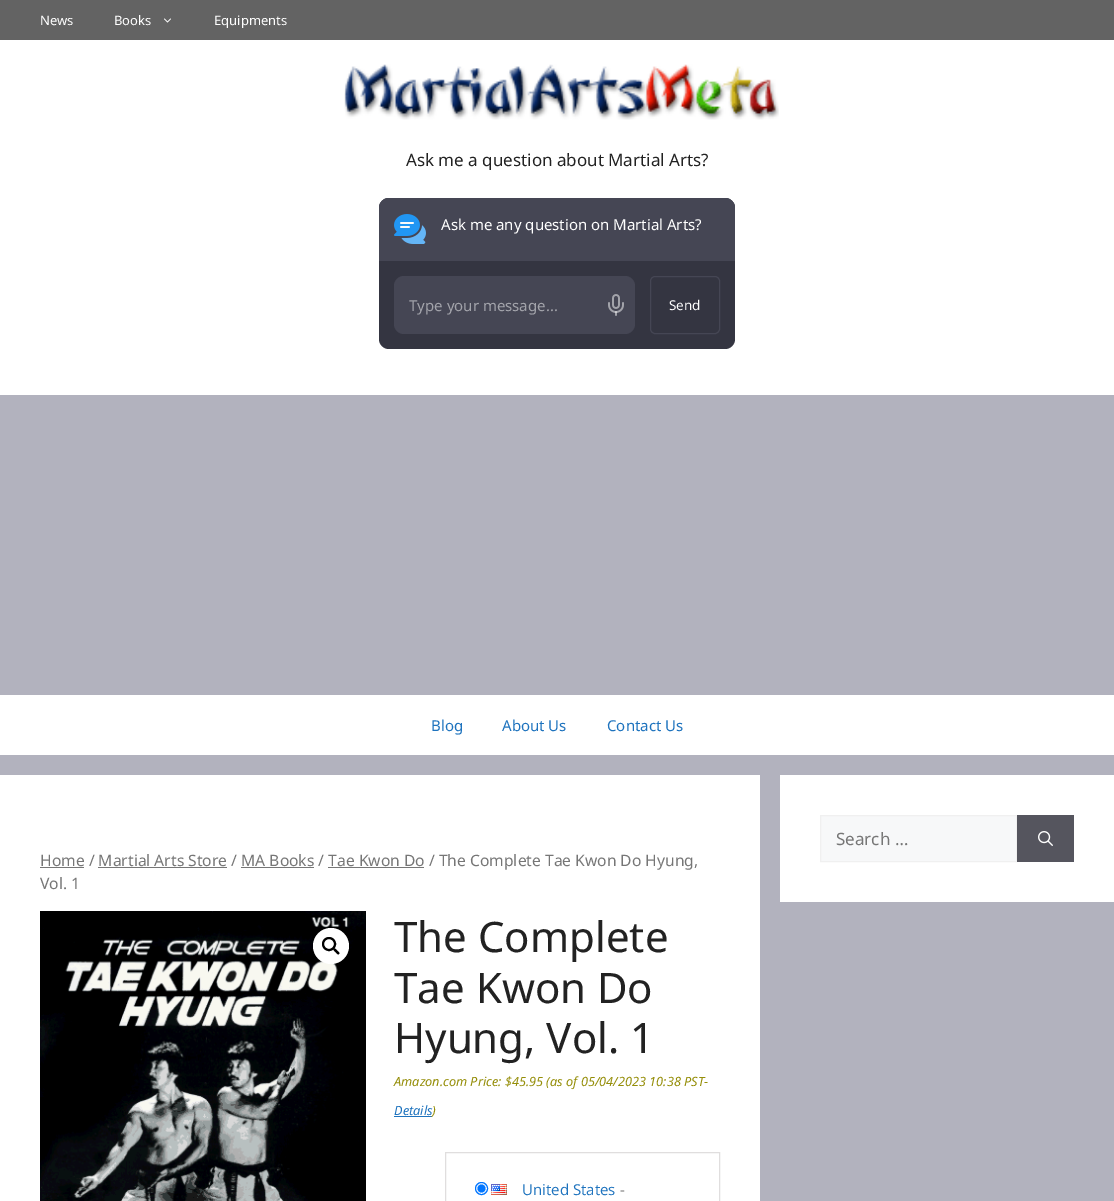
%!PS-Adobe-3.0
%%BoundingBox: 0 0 1114 1201
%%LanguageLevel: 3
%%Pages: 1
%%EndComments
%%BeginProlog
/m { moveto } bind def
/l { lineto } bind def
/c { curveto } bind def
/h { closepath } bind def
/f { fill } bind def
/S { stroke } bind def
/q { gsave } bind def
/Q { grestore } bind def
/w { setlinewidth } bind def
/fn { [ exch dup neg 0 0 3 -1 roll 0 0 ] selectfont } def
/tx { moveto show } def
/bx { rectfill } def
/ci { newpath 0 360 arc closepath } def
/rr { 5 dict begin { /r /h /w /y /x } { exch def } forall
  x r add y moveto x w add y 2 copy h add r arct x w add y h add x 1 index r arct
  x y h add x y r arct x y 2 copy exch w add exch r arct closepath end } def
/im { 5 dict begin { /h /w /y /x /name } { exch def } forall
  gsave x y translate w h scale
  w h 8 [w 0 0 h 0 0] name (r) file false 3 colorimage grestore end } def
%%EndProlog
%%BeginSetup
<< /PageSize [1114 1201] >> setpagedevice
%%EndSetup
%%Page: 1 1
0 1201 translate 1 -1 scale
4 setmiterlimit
0.698 0.698 0.745 setrgbcolor
0 0 1114 1201 bx
0.388 setgray
0 0 1114 40 bx
/NotoSans-Regular 13 fn
1 setgray
(News) 40 25 tx
(Books) 114 25 tx
(image0.raw) 164 18 7 5 im
(Equipments) 214 25 tx
0 40 1114 355 bx
(image1.raw) 344 64 435 56 im
/NotoSans-Regular 17 fn
0.133 setgray
(Ask me a question about Martial Arts?) 406 166 tx
0.204 0.208 0.255 setrgbcolor
379 198 356 151 10 rr f
0.271 0.275 0.329 setrgbcolor
389 198 m 725 198 l 730.5 198 735 202.5 735 208 c 735 260 l 379 260 l 379 208 l 379 202.5 383.5 198 389 198 c h f
(image2.raw) 394 214 32 30 im
/NotoSans-Regular 15 fn
1 setgray
(Ask me any question on Martial Arts?) 441 230 tx
0.271 0.275 0.329 setrgbcolor
379 260 356 1 bx
394 276 241 58 10 rr f
0.635 0.639 0.667 setrgbcolor
(Type your message...) 409 311 tx
(image3.raw) 608 294 16 22 im
0.271 0.275 0.329 setrgbcolor
650.5 276.5 69 57 4.5 rr S
/NotoSans-Regular 13.5 fn
1 setgray
(Send) 669 310 tx
0 695 1114 60 bx
/NotoSans-Regular 15 fn
0.118 0.451 0.745 setrgbcolor
(Blog) 431 731 tx
(About Us) 502 731 tx
(Contact Us) 607 731 tx
1 setgray
780 775 334 127 bx
0.969 0.973 0.976 setrgbcolor
820.5 815.5 m 1016.5 815.5 l 1016.5 861.5 l 820.5 861.5 l h q f Q
0.941 setgray
S
/NotoSans-Regular 17 fn
0.463 setgray
(Search …) 836 845 tx
0.333 0.333 0.369 setrgbcolor
1017 815 57 47 bx
(image4.raw) 1038 831 15 15 im
1 setgray
0 775 760 426 bx
0.463 setgray
40 867 44 1 bx
/NotoSans-Regular 15.65 fn
(Home / Martial Arts Store / MA Books / Tae Kwon Do / The Complete Tae Kwon Do Hyung,) 40 866 tx
98 867 129 1 bx
241 867 73 1 bx
328 867 96 1 bx
(Vol. 1) 40 889 tx
(image5.raw) 40 911 326 290 im
1 setgray
331 946 18 ci f
0 setgray
2 w
329 944 6 ci S
333.5 948.5 m 334.5 947.5 336.5 950 337 950.5 c 337.5 951 340.5 953 339 954 c 338 955.5 336 952.5 335.5 952 c 335 951.5 332.5 949.5 333.5 948.5 c h f
/NotoSans-Regular 42 fn
0.133 setgray
(The Complete) 394 952 tx
(Tae Kwon Do) 394 1003 tx
(Hyung, Vol. 1) 394 1053 tx
/NotoSans-Italic 12.75 fn
0.584 0.557 0.035 setrgbcolor
(Amazon.com Price: $45.95 \(as of 05/04/2023 10:38 PST-) 394 1086 tx
0.118 0.451 0.745 setrgbcolor
(Details) 394 1115 tx
394 1116 38 1 bx
0.584 0.557 0.035 setrgbcolor
(\)) 432 1115 tx
0.878 0.871 0.871 setrgbcolor
1 w
445.5 1152.5 274 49 rectstroke
0 0.459 1 setrgbcolor
481.5 1188.5 6 ci S
481.5 1188.5 4 ci f
(image6.raw) 491 1184 16 11 im
/OpenSans-Regular 15 fn
0.118 0.451 0.745 setrgbcolor
(United States) 522 1195 tx
0.463 setgray
(-) 620 1195 tx
showpage
%%EOF
